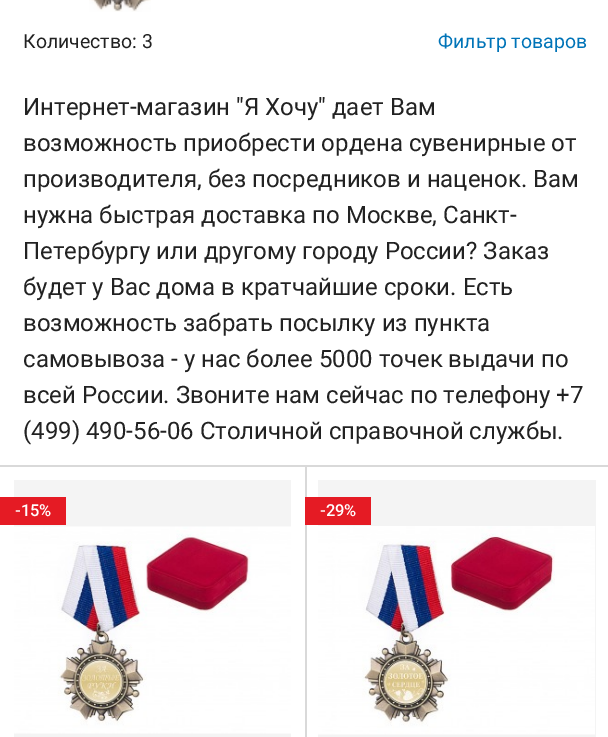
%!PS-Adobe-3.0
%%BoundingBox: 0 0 608 737
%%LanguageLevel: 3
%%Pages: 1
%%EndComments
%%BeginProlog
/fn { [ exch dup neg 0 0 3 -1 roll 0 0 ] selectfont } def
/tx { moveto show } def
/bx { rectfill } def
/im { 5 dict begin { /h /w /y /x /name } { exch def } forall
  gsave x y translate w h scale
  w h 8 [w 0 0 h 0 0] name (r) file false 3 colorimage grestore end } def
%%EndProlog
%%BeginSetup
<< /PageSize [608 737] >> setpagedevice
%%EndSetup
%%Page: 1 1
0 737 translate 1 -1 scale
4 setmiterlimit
1 setgray
0 0 608 737 bx
(image0.raw) 89 0 62 12 im
/Roboto-Regular 19.5 fn
0.133 setgray
(Количество: 3) 23 48 tx
0 0.455 0.722 setrgbcolor
(Фильтр товаров) 438 48 tx
/Roboto-Regular 24 fn
0.133 setgray
(Интернет-магазин "Я Хочу" дает Вам) 23 115 tx
(возможность приобрести ордена сувенирные от) 23 151 tx
(производителя, без посредников и наценок. Вам) 23 187 tx
(нужна быстрая доставка по Москве, Санкт-) 23 223 tx
(Петербургу или другому городу России? Заказ) 23 259 tx
(будет у Вас дома в кратчайшие сроки. Есть) 23 295 tx
(возможность забрать посылку из пункта) 23 331 tx
(самовывоза - у нас более 5000 точек выдачи по) 23 367 tx
(всей России. Звоните нам сейчас по телефону +7) 23 403 tx
(\(499\) 490-56-06 Столичной справочной службы.) 23 439 tx
0.851 setgray
0 465 608 2 bx
0.957 setgray
14 480 277 257 bx
(image1.raw) 14 526 277 208 im
0.898 0.106 0.141 setrgbcolor
0 497 66 28 bx
/Roboto-Medium 16.5 fn
1 setgray
(-15%) 15 516 tx
0.851 setgray
305 467 2 270 bx
0.957 setgray
318 480 278 257 bx
(image2.raw) 318 526 277 209 im
0.898 0.106 0.141 setrgbcolor
305 497 66 28 bx
1 setgray
(-29%) 320 516 tx
showpage
%%EOF
